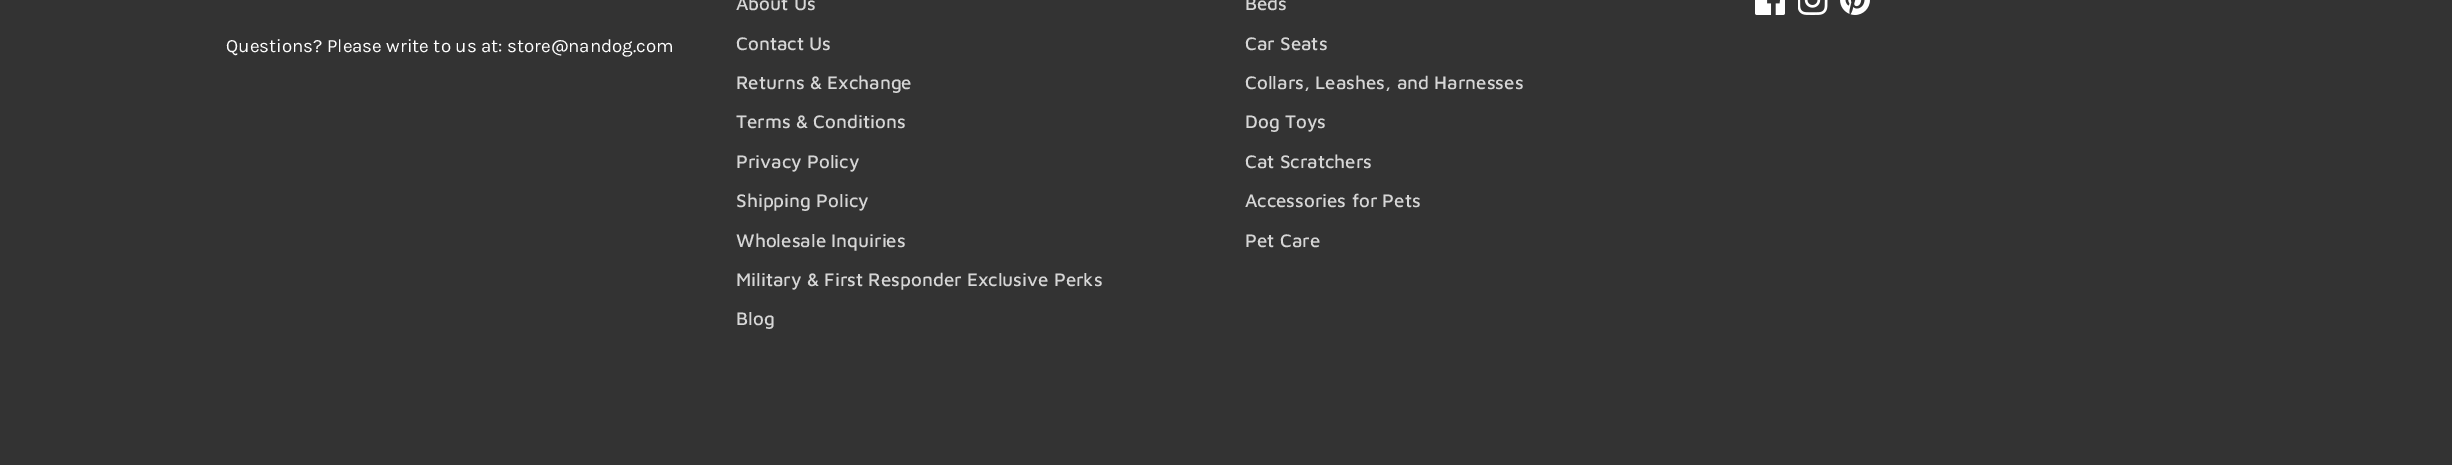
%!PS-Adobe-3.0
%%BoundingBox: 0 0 2452 465
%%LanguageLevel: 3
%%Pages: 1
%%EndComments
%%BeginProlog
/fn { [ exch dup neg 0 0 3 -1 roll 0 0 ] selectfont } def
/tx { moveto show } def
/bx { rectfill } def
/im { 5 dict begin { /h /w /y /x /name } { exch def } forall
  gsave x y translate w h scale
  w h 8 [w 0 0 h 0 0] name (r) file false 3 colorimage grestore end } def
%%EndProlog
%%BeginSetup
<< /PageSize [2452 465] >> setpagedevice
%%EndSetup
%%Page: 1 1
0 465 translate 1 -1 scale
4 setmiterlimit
0.2 setgray
0 0 2452 465 bx
/MavenPro-Medium 18.75 fn
0.839 setgray
(About Us) 736 10 tx
(Contact Us) 736 50 tx
(Returns & Exchange) 736 89 tx
(Terms & Conditions) 736 128 tx
(Privacy Policy) 736 168 tx
(Shipping Policy) 736 207 tx
(Wholesale Inquiries) 736 247 tx
(Military & First Responder Exclusive Perks) 736 286 tx
(Blog) 736 325 tx
(Beds) 1245 10 tx
(Car Seats) 1245 50 tx
(Collars, Leashes, and Harnesses) 1245 89 tx
(Dog Toys) 1245 128 tx
(Cat Scratchers) 1245 168 tx
(Accessories for Pets) 1245 207 tx
(Pet Care) 1245 247 tx
(image0.raw) 1755 0 30 15 im
(image1.raw) 1798 0 30 15 im
(image2.raw) 1840 0 30 15 im
/Karla-Regular 18.75 fn
1 setgray
(Questions? Please write to us at: store@nandog.com) 226 52 tx
showpage
%%EOF
